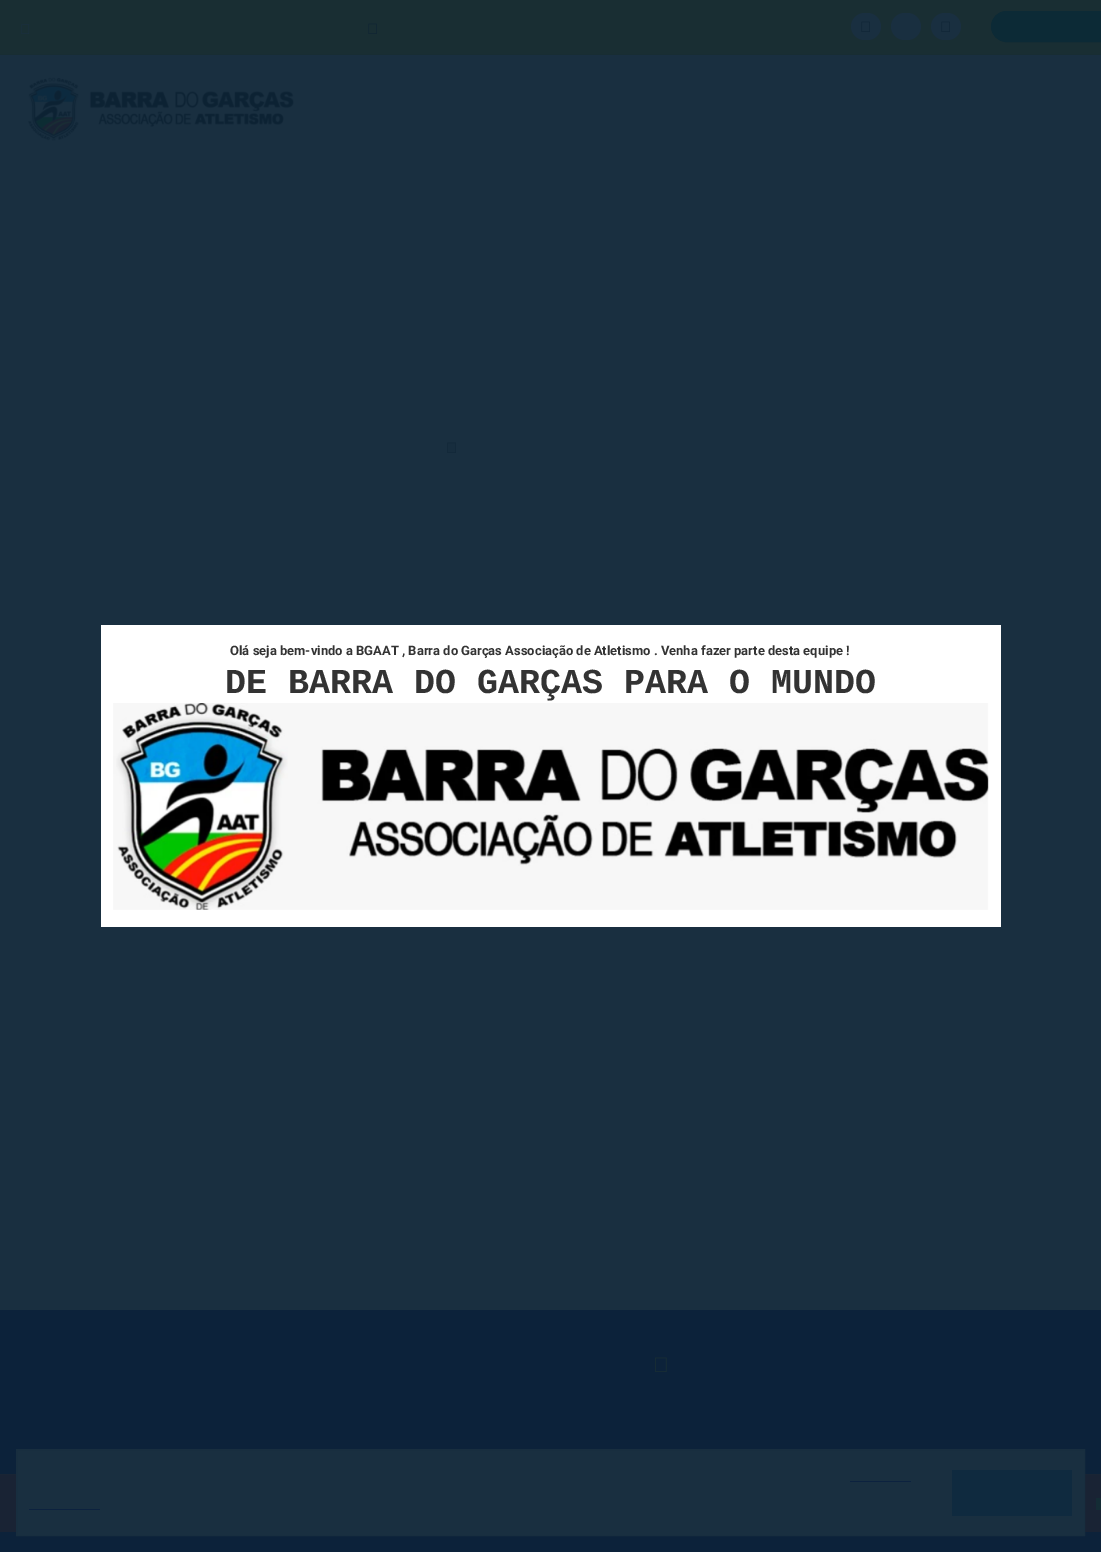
%!PS-Adobe-3.0
%%BoundingBox: 0 0 1101 1552
%%LanguageLevel: 3
%%Pages: 1
%%EndComments
%%BeginProlog
/m { moveto } bind def
/l { lineto } bind def
/h { closepath } bind def
/f { fill } bind def
/S { stroke } bind def
/q { gsave } bind def
/Q { grestore } bind def
/fn { [ exch dup neg 0 0 3 -1 roll 0 0 ] selectfont } def
/tx { moveto show } def
/bx { rectfill } def
/rr { 5 dict begin { /r /h /w /y /x } { exch def } forall
  x r add y moveto x w add y 2 copy h add r arct x w add y h add x 1 index r arct
  x y h add x y r arct x y 2 copy exch w add exch r arct closepath end } def
/im { 5 dict begin { /h /w /y /x /name } { exch def } forall
  gsave x y translate w h scale
  w h 8 [w 0 0 h 0 0] name (r) file false 3 colorimage grestore end } def
%%EndProlog
%%BeginSetup
<< /PageSize [1101 1552] >> setpagedevice
%%EndSetup
%%Page: 1 1
0 1552 translate 1 -1 scale
4 setmiterlimit
0.098 0.184 0.251 setrgbcolor
0 0 1101 1552 bx
0.098 0.18 0.2 setrgbcolor
0 0 1101 54 bx
0.094 0.176 0.2 setrgbcolor
0 54 1101 1 bx
(image0.raw) 21 24 9 10 im
(image1.raw) 368 23 9 11 im
0.098 0.184 0.251 setrgbcolor
851 13 30 27 13.5 rr f
(image2.raw) 861 21 9 11 im
891 13 30 27 13.5 rr f
931 13 30 27 13.5 rr f
(image2.raw) 941 21 9 11 im
0.047 0.165 0.212 setrgbcolor
991.5 11.5 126 30 15 rr q f Q
S
(image3.raw) 27 77 267 64 im
(image4.raw) 447 442 9 11 im
1 setgray
101 625 900 302 bx
/Roboto-Bold 13 fn
0.2 setgray
(Olá seja bem-vindo a BGAAT , Barra do Garças Associação de Atletismo . Venha fazer parte desta equipe !) 230 655 tx
/LiberationMono-Bold 35 fn
(DE BARRA DO GARÇAS PARA O MUNDO) 225 693 tx
(image5.raw) 113 703 876 207 im
0.047 0.133 0.227 setrgbcolor
0 1310 1101 242 bx
(image6.raw) 655 1357 12 15 im
0.098 0.137 0.204 setrgbcolor
0 1475 1101 57 bx
0.098 0.145 0.208 setrgbcolor
0 1474 1101 1 bx
0.078 0.173 0.208 setrgbcolor
1096 1498 5 12 bx
0.098 0.184 0.251 setrgbcolor
16.5 1449.5 m 1084.5 1449.5 l 1084.5 1535.5 l 16.5 1535.5 l h q f Q
0.094 0.18 0.247 setrgbcolor
S
0.047 0.133 0.247 setrgbcolor
850 1481 61 1 bx
29 1509 71 1 bx
0.059 0.165 0.247 setrgbcolor
952 1470 120 46 bx
showpage
%%EOF
